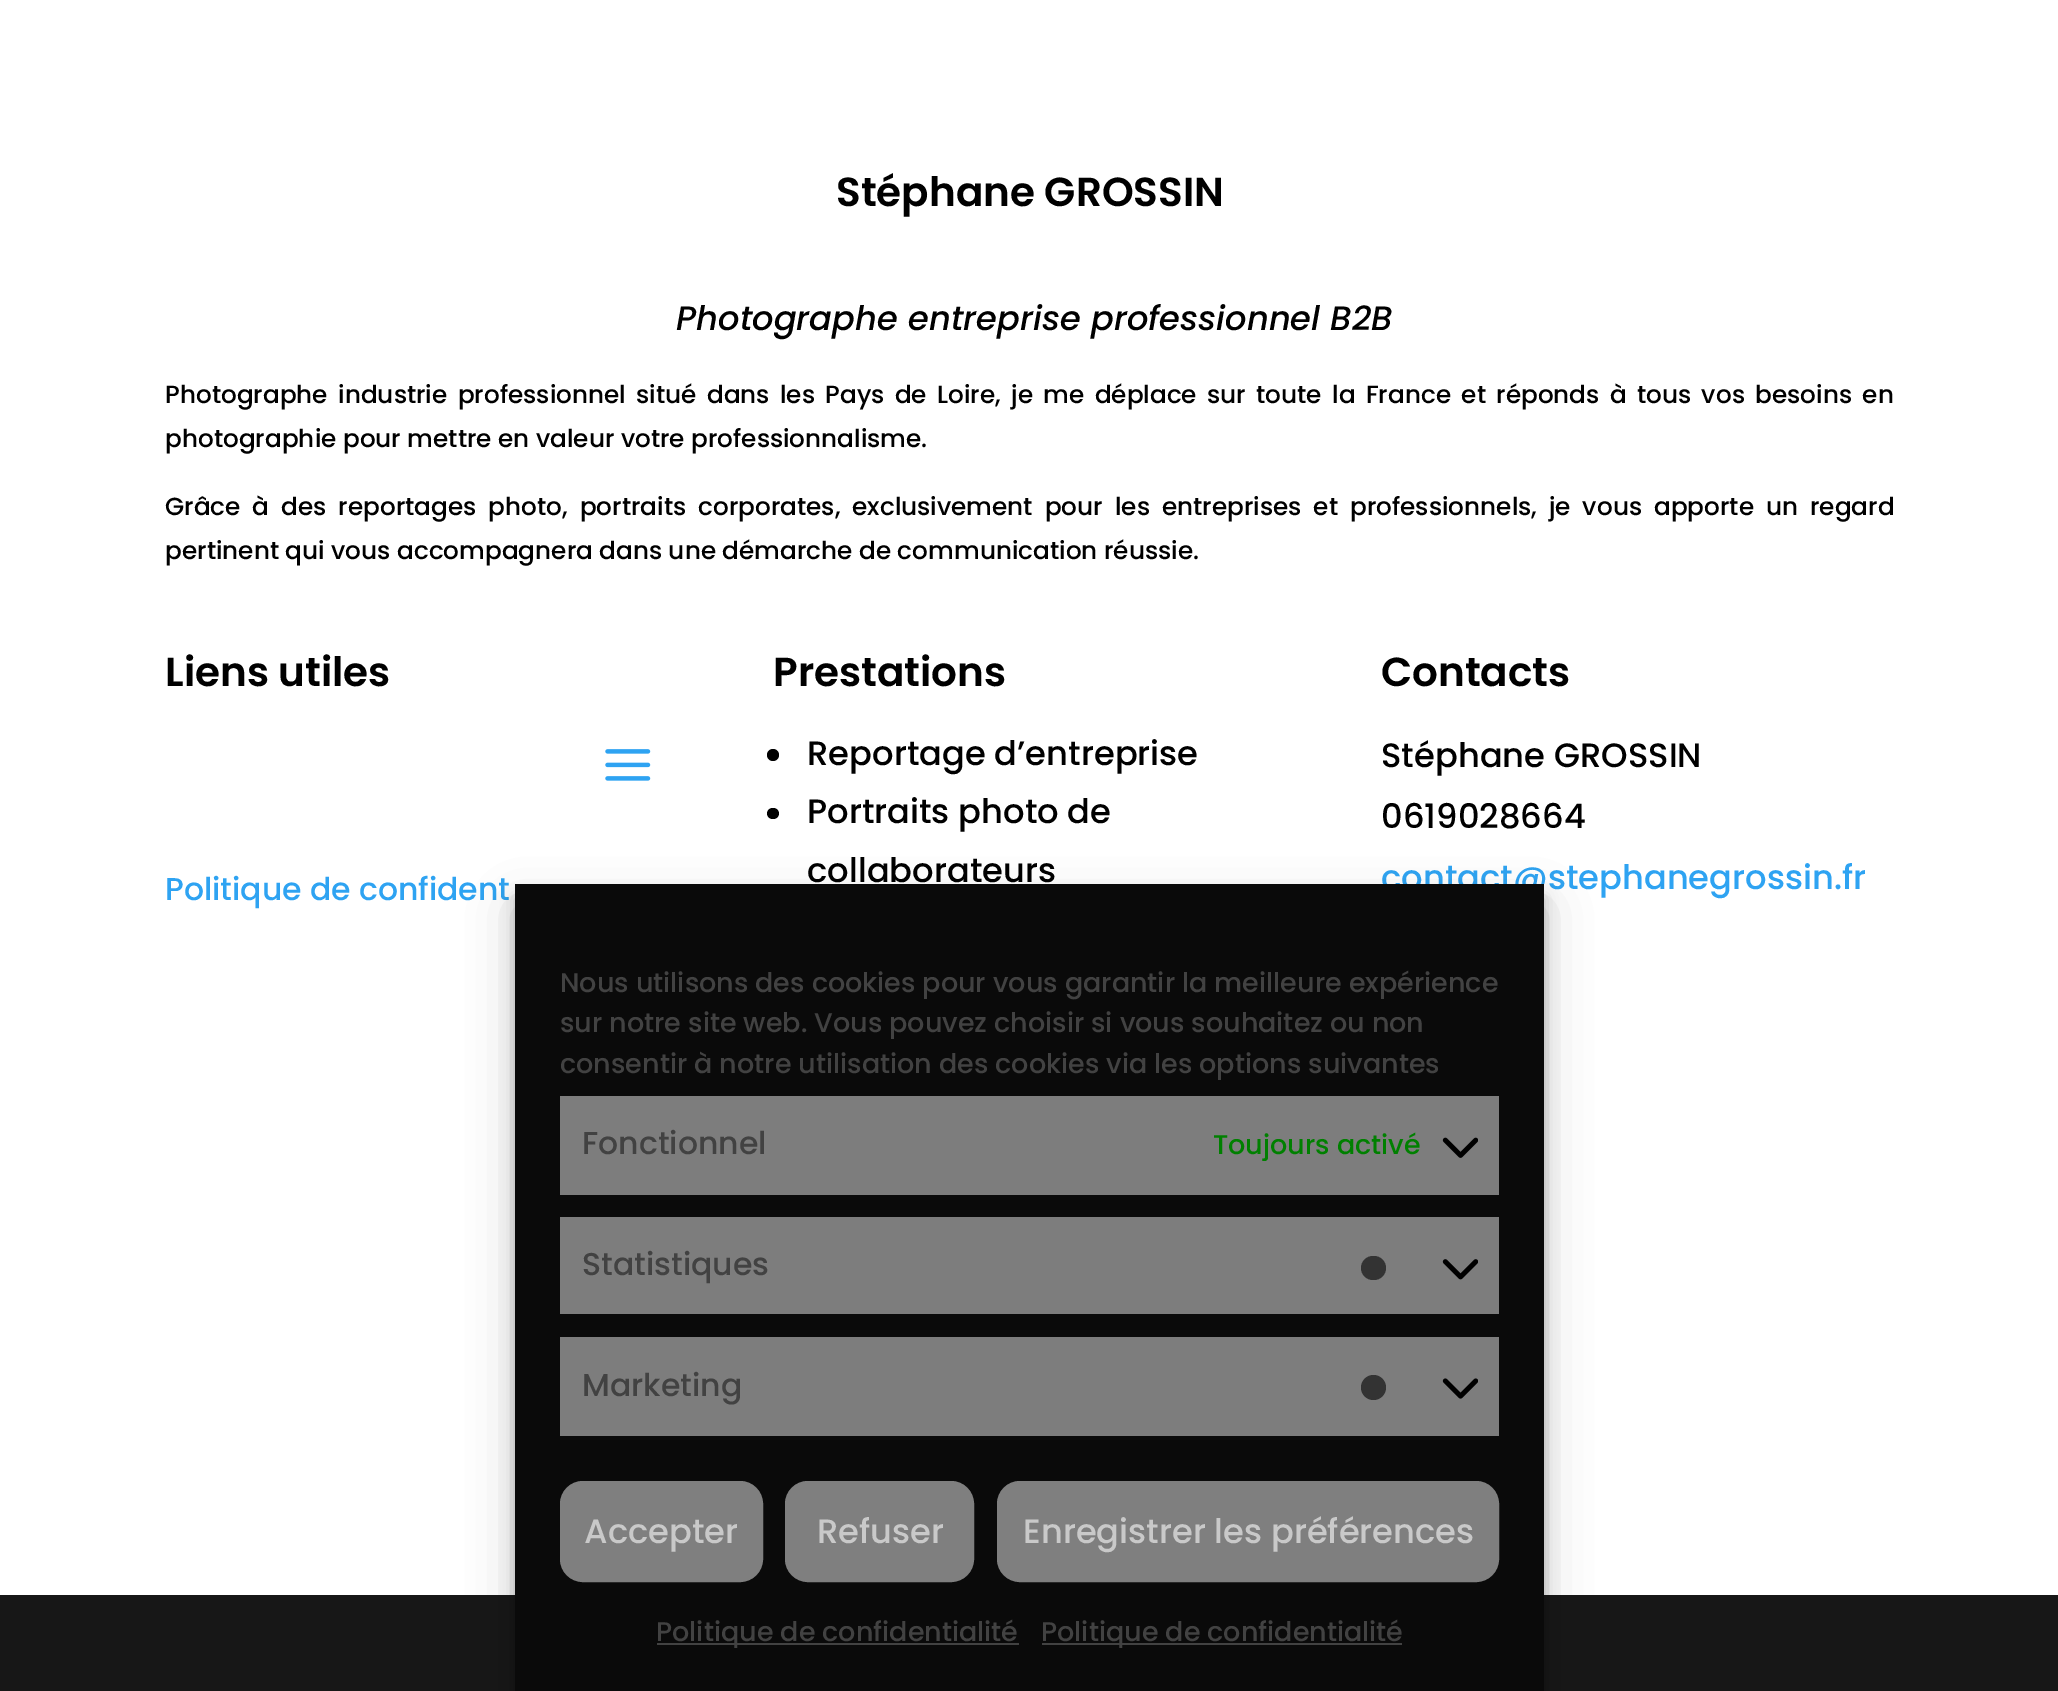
%!PS-Adobe-3.0
%%BoundingBox: 0 0 2058 1691
%%LanguageLevel: 3
%%Pages: 1
%%EndComments
%%BeginProlog
/m { moveto } bind def
/f { fill } bind def
/S { stroke } bind def
/q { gsave } bind def
/Q { grestore } bind def
/w { setlinewidth } bind def
/fn { [ exch dup neg 0 0 3 -1 roll 0 0 ] selectfont } def
/tx { moveto show } def
/bx { rectfill } def
/al { dup .setfillconstantalpha .setstrokeconstantalpha } def
/ci { newpath 0 360 arc closepath } def
/rr { 5 dict begin { /r /h /w /y /x } { exch def } forall
  x r add y moveto x w add y 2 copy h add r arct x w add y h add x 1 index r arct
  x y h add x y r arct x y 2 copy exch w add exch r arct closepath end } def
/sh { 12 dict begin { /a /b /q /h /w /y /x } { exch def } forall gsave /was 0 def
  9 -2 -9 { dup b mul 4 div /e exch def 1 sub .425 mul 2.718 exch exp 1 add a .99 .min exch div /now exch def
    1 1 now sub 1 was sub div sub al /was now def
    w h .min e 2 mul add 0 gt { x e sub y e sub w e 2 mul add h e 2 mul add
      q e add b .6 mul add w h .min 2 div e add .min 0 .max rr fill } if } for grestore end } def
/im { 5 dict begin { /h /w /y /x /name } { exch def } forall
  gsave x y translate w h scale
  w h 8 [w 0 0 h 0 0] name (r) file false 3 colorimage grestore end } def
%%EndProlog
%%BeginSetup
<< /PageSize [2058 1691] /PageUsesTransparency true >> setpagedevice
%%EndSetup
%%Page: 1 1
0 .pushpdf14devicefilter
0 1691 translate 1 -1 scale
4 setmiterlimit
1 setgray
0 0 2058 1691 bx
/Poppins-SemiBold 40.5 fn
0 setgray
(Stéphane GROSSIN) 836 206 tx
/Poppins-MediumItalic 33.75 fn
(Photographe entreprise professionnel B2B) 676 330 tx
/Poppins-Medium 24.75 fn
165 403 m 3.9 0 32 (Photographe industrie professionnel situé dans les Pays de Loire, je me déplace sur toute la France et réponds à tous vos besoins en) widthshow
(photographie pour mettre en valeur votre professionnalisme.) 165 447 tx
165 515 m 5.5 0 32 (Grâce à des reportages photo, portraits corporates, exclusivement pour les entreprises et professionnels, je vous apporte un regard) widthshow
(pertinent qui vous accompagnera dans une démarche de communication réussie.) 165 559 tx
/Poppins-SemiBold 40.5 fn
(Liens utiles) 165 686 tx
(image0.raw) 605 749 46 32 im
/Poppins-Medium 31.5 fn
0.18 0.639 0.949 setrgbcolor
(Politique de confident) 165 900 tx
/Poppins-SemiBold 40.5 fn
0 setgray
(Prestations) 773 686 tx
773 755 6 ci f
/Poppins-Medium 33.75 fn
(Reportage d’entreprise) 807 765 tx
767 808 12 11 5.5 rr f
(Portraits photo de) 807 823 tx
(collaborateurs) 807 882 tx
/Poppins-SemiBold 40.5 fn
(Contacts) 1381 686 tx
/Poppins-Medium 33.75 fn
(Stéphane GROSSIN) 1381 767 tx
(0619028664) 1381 828 tx
0.18 0.639 0.949 setrgbcolor
(contact@stephanegrossin.fr) 1381 889 tx
0.09 setgray
0 1595 2058 96 bx
0 setgray
515 898 1029 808 0 7 0.23 sh
515 907 1029 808 0 22.5 0.19 sh
0.039 setgray
515 884 1029 807 bx
/Poppins-Medium 27 fn
0.259 setgray
(Nous utilisons des cookies pour vous garantir la meilleure expérience) 560 992 tx
(sur notre site web. Vous pouvez choisir si vous souhaitez ou non) 560 1032 tx
(consentir à notre utilisation des cookies via les options suivantes) 560 1073 tx
0.49 setgray
560 1096 939 99 bx
/Poppins-Medium 31.5 fn
0.259 setgray
(Fonctionnel) 582 1154 tx
/Poppins-Medium 27 fn
0 0.502 0 setrgbcolor
(Toujours activé) 1213 1154 tx
(image1.raw) 1442 1137 36 21 im
0.49 setgray
560 1217 939 97 bx
/Poppins-Medium 31.5 fn
0.259 setgray
(Statistiques) 582 1275 tx
0.2 setgray
1361 1256 25 24 12 rr f
(image2.raw) 1442 1259 36 21 im
0.49 setgray
560 1337 939 99 bx
0.259 setgray
(Marketing) 582 1396 tx
0.2 setgray
1373.5 1387.5 12.5 ci f
(image3.raw) 1442 1378 36 21 im
0.498 setgray
561 1482 201 99 22 rr q f Q
2 w
S
/Poppins-Medium 33.75 fn
0.788 setgray
(Accepter) 584 1543 tx
0.498 setgray
786 1482 187 99 22 rr q f Q
S
0.788 setgray
(Refuser) 817 1543 tx
0.498 setgray
998 1482 500 99 22 rr q f Q
S
0.788 setgray
(Enregistrer les préférences) 1023 1543 tx
0.259 setgray
657 1643 362 2 bx
/Poppins-Medium 27 fn
(Politique de confidentialité) 656 1641 tx
1042 1643 360 2 bx
(Politique de confidentialité) 1041 1641 tx
.poppdf14devicefilter showpage
%%EOF
